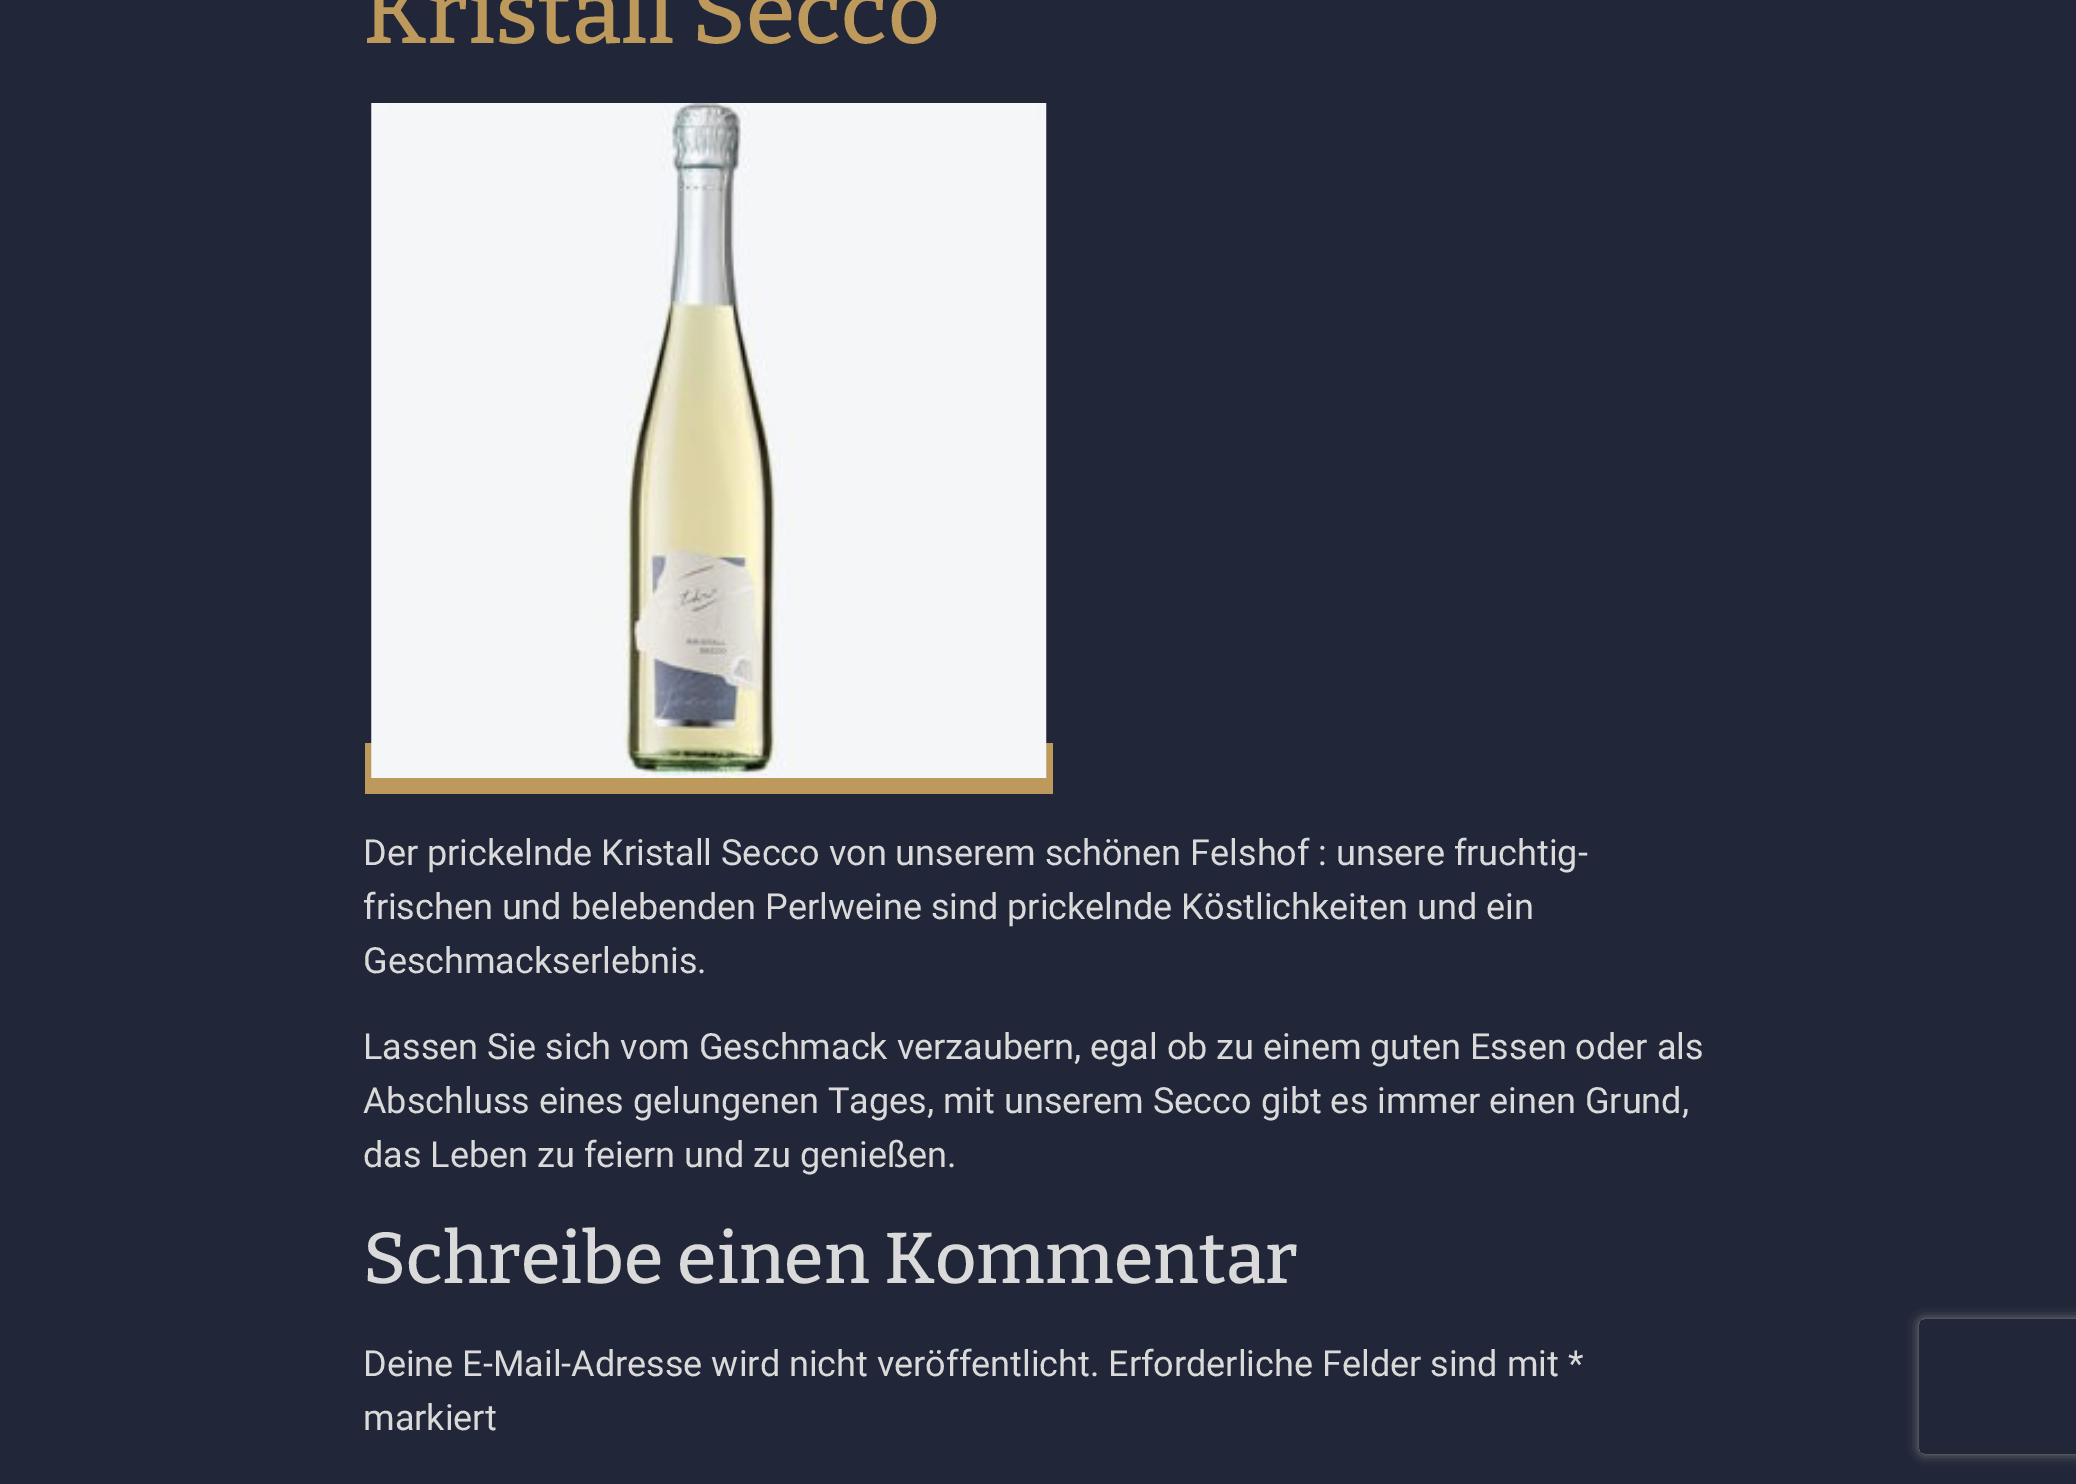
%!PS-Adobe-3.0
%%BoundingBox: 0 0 2076 1484
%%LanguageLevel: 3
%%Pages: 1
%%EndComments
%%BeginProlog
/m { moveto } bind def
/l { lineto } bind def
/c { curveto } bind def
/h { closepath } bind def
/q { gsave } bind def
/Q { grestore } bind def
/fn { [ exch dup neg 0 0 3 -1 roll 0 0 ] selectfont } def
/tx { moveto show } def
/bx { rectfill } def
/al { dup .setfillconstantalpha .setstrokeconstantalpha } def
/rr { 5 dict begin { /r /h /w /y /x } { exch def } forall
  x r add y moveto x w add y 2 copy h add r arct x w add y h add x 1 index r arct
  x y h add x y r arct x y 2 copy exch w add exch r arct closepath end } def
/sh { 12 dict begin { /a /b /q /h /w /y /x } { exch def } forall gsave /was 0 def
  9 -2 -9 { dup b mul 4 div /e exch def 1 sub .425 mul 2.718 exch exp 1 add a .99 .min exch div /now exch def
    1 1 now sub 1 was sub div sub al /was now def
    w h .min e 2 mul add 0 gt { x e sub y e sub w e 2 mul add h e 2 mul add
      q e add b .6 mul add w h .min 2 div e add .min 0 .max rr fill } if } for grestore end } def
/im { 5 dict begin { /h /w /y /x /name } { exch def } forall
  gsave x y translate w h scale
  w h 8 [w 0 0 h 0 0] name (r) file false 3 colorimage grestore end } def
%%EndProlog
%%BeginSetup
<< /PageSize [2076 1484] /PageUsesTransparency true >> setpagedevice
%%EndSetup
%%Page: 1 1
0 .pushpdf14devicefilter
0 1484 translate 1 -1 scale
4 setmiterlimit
0.129 0.153 0.22 setrgbcolor
0 0 2076 1484 bx
/Bitter-Medium 90 fn
0.741 0.604 0.361 setrgbcolor
(Kristall Secco) 363 43 tx
365 743 688 51 bx
(image0.raw) 371 103 676 675 im
/Roboto-Regular 36 fn
0.855 setgray
(Der prickelnde Kristall Secco von unserem schönen Felshof : unsere fruchtig-) 363 865 tx
(frischen und belebenden Perlweine sind prickelnde Köstlichkeiten und ein) 363 919 tx
(Geschmackserlebnis.) 363 973 tx
(Lassen Sie sich vom Geschmack verzaubern, egal ob zu einem guten Essen oder als) 363 1059 tx
(Abschluss eines gelungenen Tages, mit unserem Secco gibt es immer einen Grund,) 363 1113 tx
(das Leben zu feiern und zu genießen.) 363 1167 tx
/Bitter-Medium 72 fn
(Schreibe einen Kommentar) 363 1283 tx
/Roboto-Regular 36 fn
(Deine E-Mail-Adresse wird nicht veröffentlicht. Erforderliche Felder sind mit *) 363 1376 tx
(markiert) 363 1430 tx
q
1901 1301 m 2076 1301 l 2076 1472 l 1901 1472 l h 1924 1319 m 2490 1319 l 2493 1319 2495 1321 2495 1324 c 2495 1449 l 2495 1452 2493 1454 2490 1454 c 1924 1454 l 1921 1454 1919 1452 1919 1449 c 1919 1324 l 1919 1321 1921 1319 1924 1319 c h eoclip newpath
0.502 setgray
1919 1319 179 135 5 5.5 1 sh
Q
.poppdf14devicefilter showpage
%%EOF
